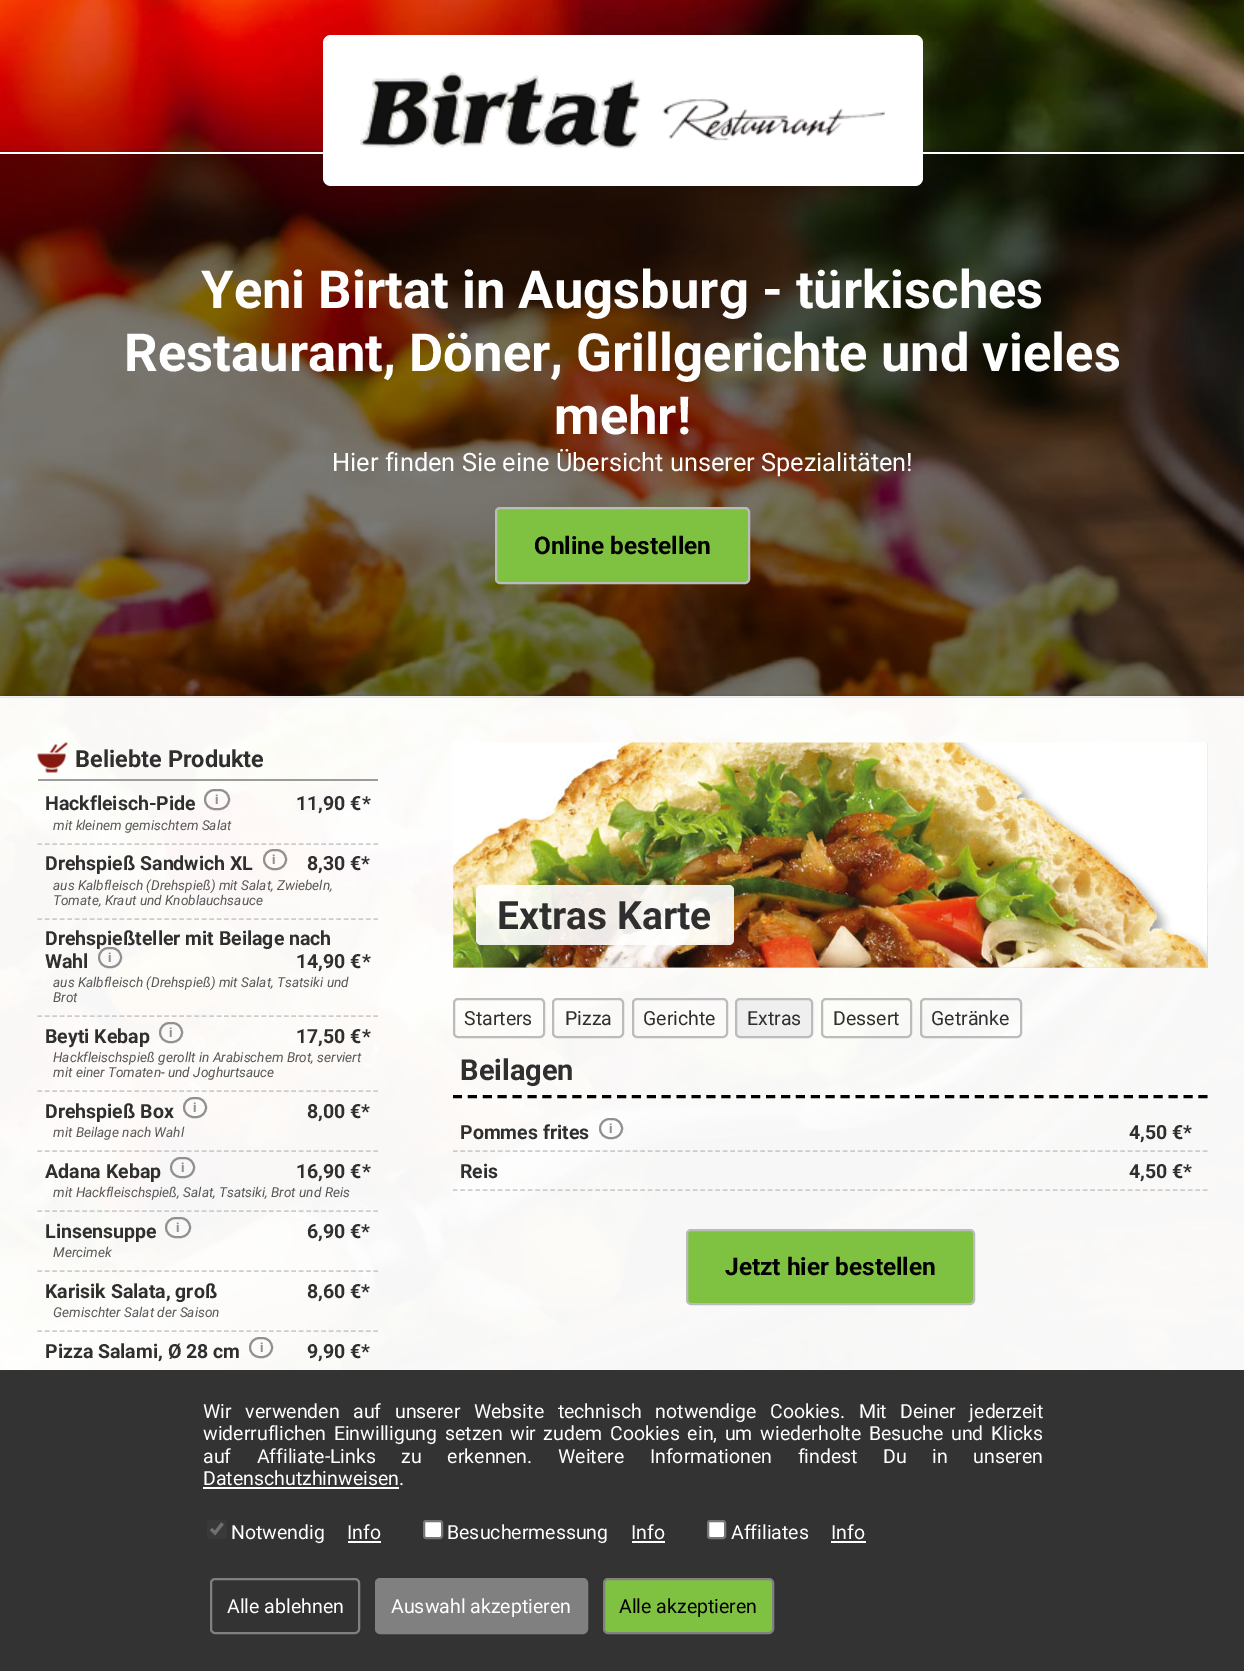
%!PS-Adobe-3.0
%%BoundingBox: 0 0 1244 1671
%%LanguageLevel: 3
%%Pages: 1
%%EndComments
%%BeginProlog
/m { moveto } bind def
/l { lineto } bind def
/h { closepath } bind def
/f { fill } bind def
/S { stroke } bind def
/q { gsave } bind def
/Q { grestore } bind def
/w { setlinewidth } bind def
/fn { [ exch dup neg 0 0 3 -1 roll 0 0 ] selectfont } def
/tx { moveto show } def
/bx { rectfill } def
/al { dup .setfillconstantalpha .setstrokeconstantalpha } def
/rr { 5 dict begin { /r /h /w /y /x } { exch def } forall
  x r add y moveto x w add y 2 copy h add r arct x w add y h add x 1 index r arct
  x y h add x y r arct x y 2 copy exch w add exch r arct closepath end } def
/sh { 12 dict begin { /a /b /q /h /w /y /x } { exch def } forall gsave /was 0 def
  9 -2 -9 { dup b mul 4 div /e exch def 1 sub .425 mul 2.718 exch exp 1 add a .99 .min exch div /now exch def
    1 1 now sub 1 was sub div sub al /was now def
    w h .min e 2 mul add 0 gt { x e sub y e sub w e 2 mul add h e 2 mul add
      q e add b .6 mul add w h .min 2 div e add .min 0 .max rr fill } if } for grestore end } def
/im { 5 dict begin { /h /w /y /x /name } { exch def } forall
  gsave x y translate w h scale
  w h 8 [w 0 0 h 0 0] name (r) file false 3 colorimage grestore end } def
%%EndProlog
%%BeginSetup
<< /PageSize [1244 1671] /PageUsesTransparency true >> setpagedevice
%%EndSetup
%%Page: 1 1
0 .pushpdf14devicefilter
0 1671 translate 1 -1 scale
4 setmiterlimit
1 setgray
0 0 1244 1671 bx
(image0.raw) 0 0 1244 1370 im
q
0 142 m 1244 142 l 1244 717 l 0 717 l h 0 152 m 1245 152 l 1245 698 l 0 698 l h eoclip newpath
0 setgray
-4 152 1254 555 0 3 0.2 sh
Q
0.5 al
0 setgray
0 154 1244 542 bx
1 al
1 setgray
0 152 1244 2 bx
323 35 600 151 8 rr f
(image1.raw) 360 72 525 77 im
0 696 1244 2 bx
/Roboto-Bold 52.6 fn
(Yeni Birtat in Augsburg - türkisches) 201 308 tx
(Restaurant, Döner, Grillgerichte und vieles) 124 371 tx
(mehr!) 554 434 tx
/Roboto-Regular 25.35 fn
(Hier finden Sie eine Übersicht unserer Spezialitäten!) 332 471 tx
0.498 0.761 0.255 setrgbcolor
496 508 253 75 4 rr q f Q
0.733 setgray
2 w
S
/Roboto-Bold 24.4 fn
0 setgray
(Online bestellen) 534 554 tx
q
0 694 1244 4 rectclip
-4 698 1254 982 0 3 0.2 sh
Q
0.97 al
1 setgray
0 698 1244 672 bx
1 al
0.612 setgray
38 779 340 2 bx
(image2.raw) 37 742 31 31 im
/Roboto-Bold 23.5 fn
0.184 setgray
(Beliebte Produkte) 75 767 tx
0.8 setgray
1.5 w
[4.5 2.97] 0 setdash
37.5 844 m 378 844 l S
/Roboto-Bold 19.5 fn
0.184 setgray
(Hackfleisch-Pide) 45 810 tx
0.565 setgray
2 w
[] 0 setdash
205 790 24 19 9.5 rr S
/Roboto-Bold 13 fn
(i) 215 804 tx
/Roboto-Bold 19.5 fn
0.184 setgray
(11,90 €*) 296 810 tx
/Roboto-Italic 13.65 fn
0.341 setgray
(mit kleinem gemischtem Salat) 53 830 tx
0.8 setgray
1.5 w
[4.5 2.97] 0 setdash
37.5 919 m 378 919 l S
/Roboto-Bold 19.5 fn
0.184 setgray
(Drehspieß Sandwich XL) 45 870 tx
0.565 setgray
2 w
[] 0 setdash
264 850 22 19 9.5 rr S
/Roboto-Bold 13 fn
(i) 272 864 tx
/Roboto-Bold 19.5 fn
0.184 setgray
(8,30 €*) 307 870 tx
/Roboto-Italic 13.65 fn
0.341 setgray
(aus Kalbfleisch \(Drehspieß\) mit Salat, Zwiebeln,) 53 890 tx
(Tomate, Kraut und Knoblauchsauce) 53 905 tx
0.8 setgray
1.5 w
[4.5 2.97] 0 setdash
37.5 1016 m 378 1016 l S
/Roboto-Bold 19.5 fn
0.184 setgray
(Drehspießteller mit Beilage nach) 45 945 tx
(Wahl) 45 968 tx
0.565 setgray
2 w
[] 0 setdash
99 948 22 19 9.5 rr S
/Roboto-Bold 13 fn
(i) 108 962 tx
/Roboto-Bold 19.5 fn
0.184 setgray
(14,90 €*) 296 968 tx
/Roboto-Italic 13.65 fn
0.341 setgray
(aus Kalbfleisch \(Drehspieß\) mit Salat, Tsatsiki und) 53 987 tx
(Brot) 53 1002 tx
0.8 setgray
1.5 w
[4.5 2.97] 0 setdash
37.5 1091 m 378 1091 l S
/Roboto-Bold 19.5 fn
0.184 setgray
(Beyti Kebap) 45 1043 tx
0.565 setgray
2 w
[] 0 setdash
160 1023 22 19 9.5 rr S
/Roboto-Bold 13 fn
(i) 169 1037 tx
/Roboto-Bold 19.5 fn
0.184 setgray
(17,50 €*) 296 1043 tx
/Roboto-Italic 13.65 fn
0.341 setgray
(Hackfleischspieß gerollt in Arabischem Brot, serviert) 53 1062 tx
(mit einer Tomaten- und Joghurtsauce) 53 1077 tx
0.8 setgray
1.5 w
[4.5 2.97] 0 setdash
37.5 1151 m 378 1151 l S
/Roboto-Bold 19.5 fn
0.184 setgray
(Drehspieß Box) 45 1118 tx
0.565 setgray
2 w
[] 0 setdash
184 1098 22 19 9.5 rr S
/Roboto-Bold 13 fn
(i) 193 1112 tx
/Roboto-Bold 19.5 fn
0.184 setgray
(8,00 €*) 307 1118 tx
/Roboto-Italic 13.65 fn
0.341 setgray
(mit Beilage nach Wahl) 53 1137 tx
0.8 setgray
1.5 w
[4.5 2.97] 0 setdash
37.5 1211 m 378 1211 l S
/Roboto-Bold 19.5 fn
0.184 setgray
(Adana Kebap) 45 1178 tx
0.565 setgray
2 w
[] 0 setdash
171 1158 23 19 9.5 rr S
/Roboto-Bold 13 fn
(i) 181 1172 tx
/Roboto-Bold 19.5 fn
0.184 setgray
(16,90 €*) 296 1178 tx
/Roboto-Italic 13.65 fn
0.341 setgray
(mit Hackfleischspieß, Salat, Tsatsiki, Brot und Reis) 53 1197 tx
0.8 setgray
1.5 w
[4.5 2.97] 0 setdash
37.5 1271 m 378 1271 l S
/Roboto-Bold 19.5 fn
0.184 setgray
(Linsensuppe) 45 1238 tx
0.565 setgray
2 w
[] 0 setdash
166 1218 24 19 9.5 rr S
/Roboto-Bold 13 fn
(i) 176 1232 tx
/Roboto-Bold 19.5 fn
0.184 setgray
(6,90 €*) 307 1238 tx
/Roboto-Italic 13.65 fn
0.341 setgray
(Mercimek) 53 1257 tx
0.8 setgray
1.5 w
[4.5 2.97] 0 setdash
37.5 1331 m 378 1331 l S
/Roboto-Bold 19.5 fn
0.184 setgray
(Karisik Salata, groß) 45 1298 tx
(8,60 €*) 307 1298 tx
/Roboto-Italic 13.65 fn
0.341 setgray
(Gemischter Salat der Saison) 53 1317 tx
/Roboto-Bold 19.5 fn
0.184 setgray
(Pizza Salami, Ø 28 cm) 45 1358 tx
0.565 setgray
2 w
[] 0 setdash
250 1338 22 19 9.5 rr S
/Roboto-Bold 13 fn
(i) 260 1352 tx
/Roboto-Bold 19.5 fn
0.184 setgray
(9,90 €*) 307 1358 tx
0.867 setgray
453 743 755 225 bx
(image3.raw) 453 742 755 226 im
0.9 al
1 setgray
476 885 258 60 5 rr f
/Roboto-Bold 39 fn
1 al
0.184 setgray
(Extras Karte) 497 929 tx
0.733 setgray
454 999 90 38 4 rr S
/Roboto-Regular 19.5 fn
0.184 setgray
(Starters) 464 1025 tx
0.733 setgray
553 999 70 38 4 rr S
0.184 setgray
(Pizza) 565 1025 tx
0.733 setgray
633 999 94 38 4 rr S
0.184 setgray
(Gerichte) 643 1025 tx
0.937 setgray
736 999 76 38 4 rr q f Q
0.733 setgray
S
0.184 setgray
(Extras) 747 1025 tx
0.733 setgray
822 999 89 38 4 rr S
0.184 setgray
(Dessert) 833 1025 tx
0.733 setgray
921 999 100 38 4 rr S
0.184 setgray
(Getränke) 931 1025 tx
0 setgray
3 w
[9 5.91] 0 setdash
453 1096.5 m 1207.5 1096.5 l S
/Roboto-Bold 29 fn
0.184 setgray
(Beilagen) 460 1080 tx
0.8 setgray
1.5 w
[4.5 3] 0 setdash
453 1151 m 1207.5 1151 l S
/Roboto-Bold 19.5 fn
0.184 setgray
(Pommes frites) 460 1139 tx
0.565 setgray
2 w
[] 0 setdash
600 1119 22 19 9.5 rr S
/Roboto-Bold 13 fn
(i) 609 1133 tx
/Roboto-Bold 19.5 fn
0.184 setgray
(4,50 €*) 1129 1139 tx
0.8 setgray
1.5 w
[4.5 3] 0 setdash
453 1190 m 1207.5 1190 l S
0.184 setgray
(Reis) 460 1178 tx
(4,50 €*) 1129 1178 tx
0.498 0.761 0.255 setrgbcolor
687 1230 287 74 4 rr q f Q
0.733 setgray
2 w
[] 0 setdash
S
/Roboto-Bold 24.4 fn
0 setgray
(Jetzt hier bestellen) 725 1275 tx
0.2 setgray
0 1370 1244 301 bx
/Roboto-Regular 19.5 fn
1 setgray
203 1418 m 8.75 0 32 (Wir verwenden auf unserer Website technisch notwendige Cookies. Mit Deiner jederzeit) widthshow
203 1440 m 2.75 0 32 (widerruflichen Einwilligung setzen wir zudem Cookies ein, um wiederholte Besuche und Klicks) widthshow
203 1463 m 20.75 0 32 (auf Affiliate-Links zu erkennen. Weitere Informationen findest Du in unseren) widthshow
(Datenschutzhinweisen.) 203 1485 tx
203 1487 196 2 bx
0.224 setgray
207 1520 20 19 3 rr f
0.439 setgray
3.1 w
211 1529 m 215 1533 l 222.5 1523.5 l S
1 setgray
(Notwendig) 231 1539 tx
(Info) 347 1539 tx
348 1541 33 2 bx
424 1521 18 17 2 rr q f Q
0.463 setgray
2 w
S
1 setgray
(Besuchermessung) 447 1539 tx
(Info) 631 1539 tx
632 1541 33 2 bx
708 1521 17 17 2 rr q f Q
0.463 setgray
S
1 setgray
(Affiliates) 731 1539 tx
(Info) 831 1539 tx
831 1541 35 2 bx
0.502 setgray
211 1579 148 54 4 rr S
1 setgray
(Alle ablehnen) 227 1613 tx
0.502 setgray
376 1579 211 54 4 rr q f Q
S
1 setgray
(Auswahl akzeptieren) 391 1613 tx
0.498 0.761 0.255 setrgbcolor
604 1579 169 54 4 rr q f Q
0.502 setgray
S
0 setgray
(Alle akzeptieren) 619 1613 tx
.poppdf14devicefilter showpage
%%EOF
